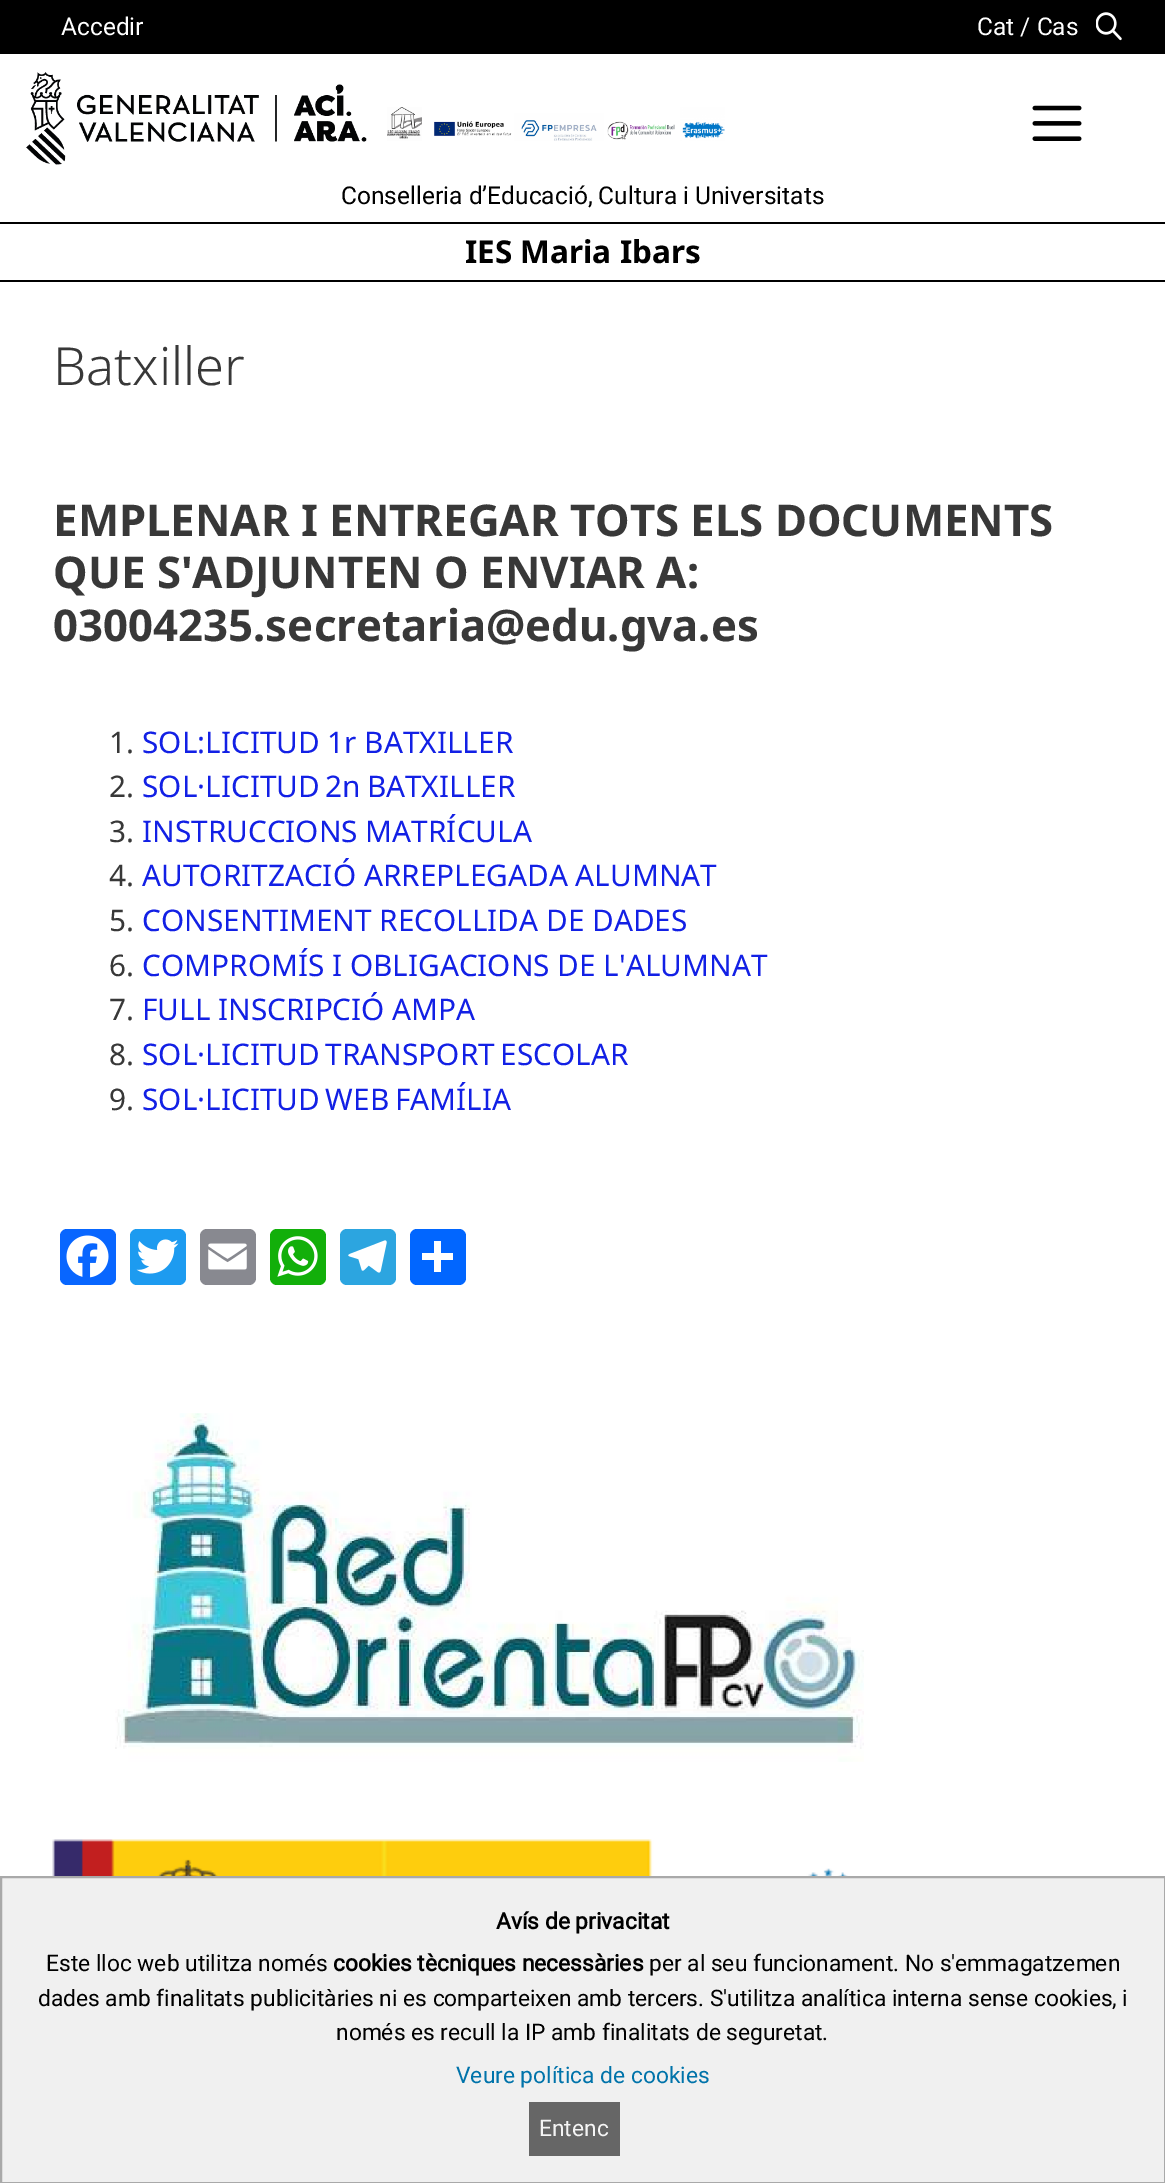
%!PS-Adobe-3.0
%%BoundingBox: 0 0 1165 2183
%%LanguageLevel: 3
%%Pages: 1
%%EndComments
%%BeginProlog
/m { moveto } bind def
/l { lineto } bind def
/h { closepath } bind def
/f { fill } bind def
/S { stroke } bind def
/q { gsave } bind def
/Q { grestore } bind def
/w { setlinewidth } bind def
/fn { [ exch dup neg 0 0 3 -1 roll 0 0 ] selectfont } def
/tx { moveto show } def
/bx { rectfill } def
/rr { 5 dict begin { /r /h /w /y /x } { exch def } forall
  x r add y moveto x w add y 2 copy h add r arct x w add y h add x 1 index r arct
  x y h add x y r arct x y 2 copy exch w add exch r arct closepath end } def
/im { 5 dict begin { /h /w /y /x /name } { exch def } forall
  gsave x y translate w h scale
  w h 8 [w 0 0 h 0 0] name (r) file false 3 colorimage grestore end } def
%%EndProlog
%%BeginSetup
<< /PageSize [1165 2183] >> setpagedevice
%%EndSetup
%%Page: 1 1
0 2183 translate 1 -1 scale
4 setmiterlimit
1 setgray
0 0 1165 2183 bx
0 setgray
0 280 1165 2 bx
0 222 1165 2 bx
0 0 1165 54 bx
/Roboto-Regular 24.5 fn
1 setgray
(Accedir) 61 35 tx
(Cat / Cas) 977 35 tx
(image0.raw) 1096 12 26 29 im
(image1.raw) 26 72 341 93 im
(image2.raw) 387 107 338 34 im
0 setgray
(Conselleria d’Educació, Cultura i Universitats) 341 204 tx
/NotoSans-Bold 31.5 fn
(IES Maria Ibars) 465 263 tx
(image3.raw) 1032 105 50 36 im
/NotoSans-Light 52.5 fn
0.22 setgray
(Batxiller) 53 385 tx
/NotoSans-Bold 43.75 fn
(EMPLENAR I ENTREGAR TOTS ELS DOCUMENTS) 53 536 tx
(QUE S'ADJUNTEN O ENVIAR A:) 53 588 tx
(03004235.secretaria@edu.gva.es) 53 641 tx
/NotoSans-Regular 29.75 fn
(1.) 109 753 tx
0.071 0.125 0.898 setrgbcolor
(SOL:LICITUD 1r BATXILLER) 142 753 tx
0.22 setgray
(2.) 109 797 tx
0.071 0.125 0.898 setrgbcolor
142 797 m -2 0 32 (SOL·LICITUD 2n BATXILLER) widthshow
0.22 setgray
(3.) 109 842 tx
0.071 0.125 0.898 setrgbcolor
(INSTRUCCIONS MATRÍCULA) 142 842 tx
0.22 setgray
(4.) 109 886 tx
0.071 0.125 0.898 setrgbcolor
(AUTORITZACIÓ ARREPLEGADA ALUMNAT) 142 886 tx
0.22 setgray
(5.) 109 931 tx
0.071 0.125 0.898 setrgbcolor
(CONSENTIMENT RECOLLIDA DE DADES) 142 931 tx
0.22 setgray
(6.) 109 976 tx
0.071 0.125 0.898 setrgbcolor
(COMPROMÍS I OBLIGACIONS DE L'ALUMNAT) 142 976 tx
0.22 setgray
(7.) 109 1020 tx
0.071 0.125 0.898 setrgbcolor
(FULL INSCRIPCIÓ AMPA) 142 1020 tx
0.22 setgray
(8.) 109 1065 tx
0.071 0.125 0.898 setrgbcolor
142 1065 m -2 0 32 (SOL·LICITUD TRANSPORT ESCOLAR) widthshow
0.22 setgray
(9.) 109 1110 tx
0.071 0.125 0.898 setrgbcolor
142 1110 m -2 0 32 (SOL·LICITUD WEB FAMÍLIA) widthshow
0.031 0.4 1 setrgbcolor
60 1229 56 56 7 rr f
(image4.raw) 66 1235 43 43 im
0.114 0.608 0.941 setrgbcolor
130 1229 56 56 7 rr f
(image5.raw) 136 1239 43 35 im
0.533 0.537 0.565 setrgbcolor
200 1229 56 56 7 rr f
(image6.raw) 208 1243 39 27 im
0.071 0.686 0.039 setrgbcolor
270 1229 56 56 7 rr f
(image7.raw) 277 1236 41 41 im
0.173 0.647 0.878 setrgbcolor
340 1229 56 56 7 rr f
(image8.raw) 348 1240 39 33 im
0.004 0.4 1 setrgbcolor
410 1229 56 56 7 rr f
1 setgray
434 1241 7 31 bx
422 1253 31 7 bx
(image9.raw) 115 1413 749 349 im
(image10.raw) 52 1839 810 37 im
0.941 setgray
1 1877 m 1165 1877 l 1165 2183 l 1 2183 l h q f Q
0.663 setgray
2 w
S
/Roboto-Bold 22.75 fn
0 setgray
(Avís de privacitat) 496 1929 tx
/Roboto-Regular 22.75 fn
(Este lloc web utilitza només) 46 1971 tx
/Roboto-Bold 22.75 fn
(cookies tècniques necessàries) 333 1971 tx
/Roboto-Regular 22.75 fn
(per al seu funcionament. No s'emmagatzemen) 649 1971 tx
(dades amb finalitats publicitàries ni es comparteixen amb tercers. S'utilitza analítica interna sense cookies, i) 38 2006 tx
(només es recull la IP amb finalitats de seguretat.) 336 2040 tx
0 0.451 0.667 setrgbcolor
(Veure política de cookies) 456 2083 tx
0.4 setgray
529 2102 91 54 bx
0.961 setgray
(Entenc) 539 2136 tx
showpage
%%EOF
